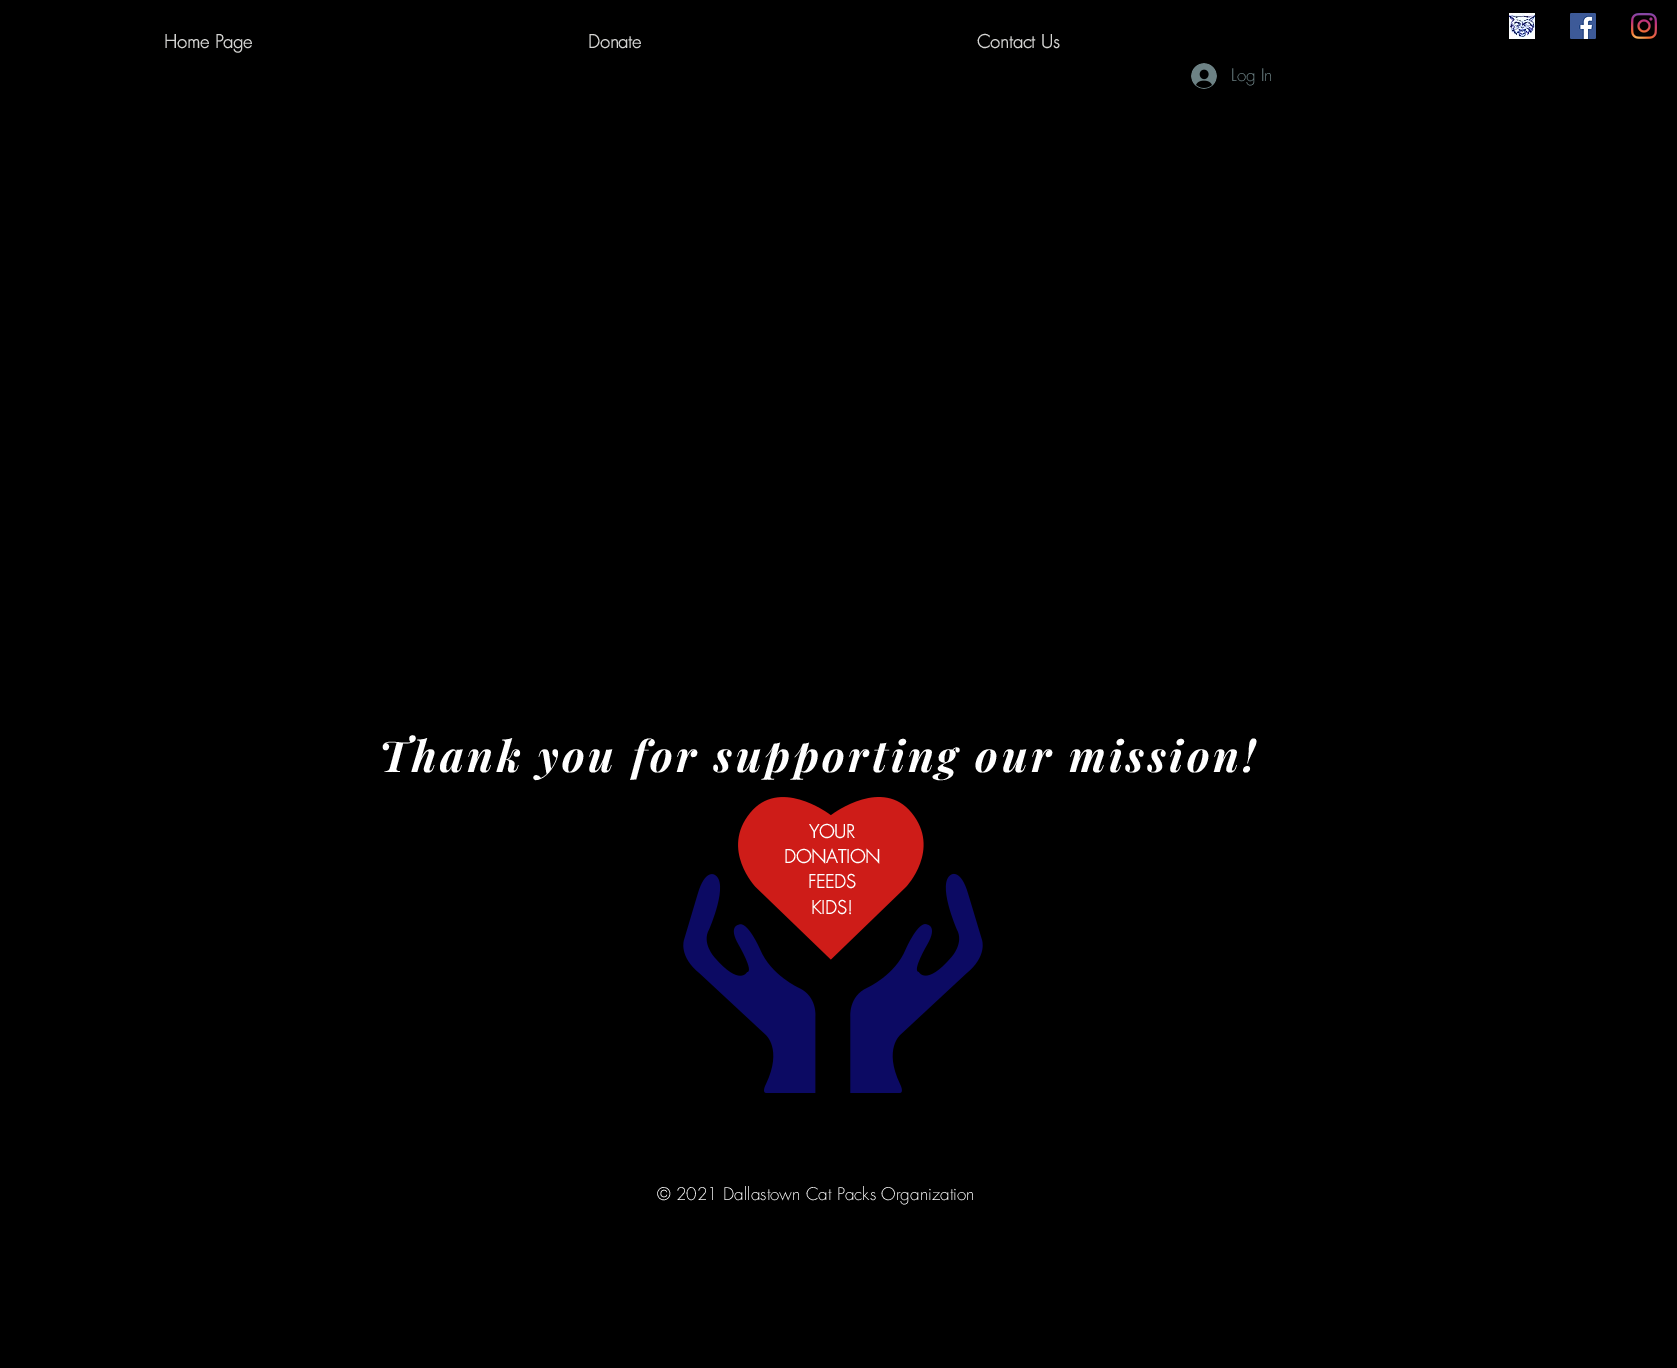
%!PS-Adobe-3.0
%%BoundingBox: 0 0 1677 1368
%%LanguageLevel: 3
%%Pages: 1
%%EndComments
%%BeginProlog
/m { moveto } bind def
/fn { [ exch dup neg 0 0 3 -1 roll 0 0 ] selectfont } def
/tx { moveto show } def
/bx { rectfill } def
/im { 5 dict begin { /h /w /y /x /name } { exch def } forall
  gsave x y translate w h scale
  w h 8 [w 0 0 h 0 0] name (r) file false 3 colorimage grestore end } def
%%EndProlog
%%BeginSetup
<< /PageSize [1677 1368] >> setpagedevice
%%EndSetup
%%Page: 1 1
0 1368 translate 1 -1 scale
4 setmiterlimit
0 setgray
0 0 1677 1368 bx
(image0.raw) 1509 13 26 26 im
(image1.raw) 1570 13 26 26 im
(image2.raw) 1631 13 26 26 im
/futura-Bold 18 fn
0.831 0.831 0.824 setrgbcolor
(Home Page) 164 48 tx
(Donate) 588 48 tx
(Contact Us) 977 48 tx
(image3.raw) 1191 63 26 26 im
/futura-Light 17 fn
0.427 0.51 0.522 setrgbcolor
(Log In) 1231 81 tx
/PlayfairDisplay-BoldItalic 43 fn
1 setgray
379 772 m 3.45 0 (Thank you for supporting our mission!) ashow
(image4.raw) 683 797 300 296 im
/futura-Bold 18 fn
(YOUR) 809 838 tx
(DONATION) 784 863 tx
(FEEDS) 808 888 tx
(KIDS!) 811 914 tx
/futura-Light 17 fn
(© 2021 Dallastown Cat Packs Organization) 657 1200 tx
showpage
%%EOF
